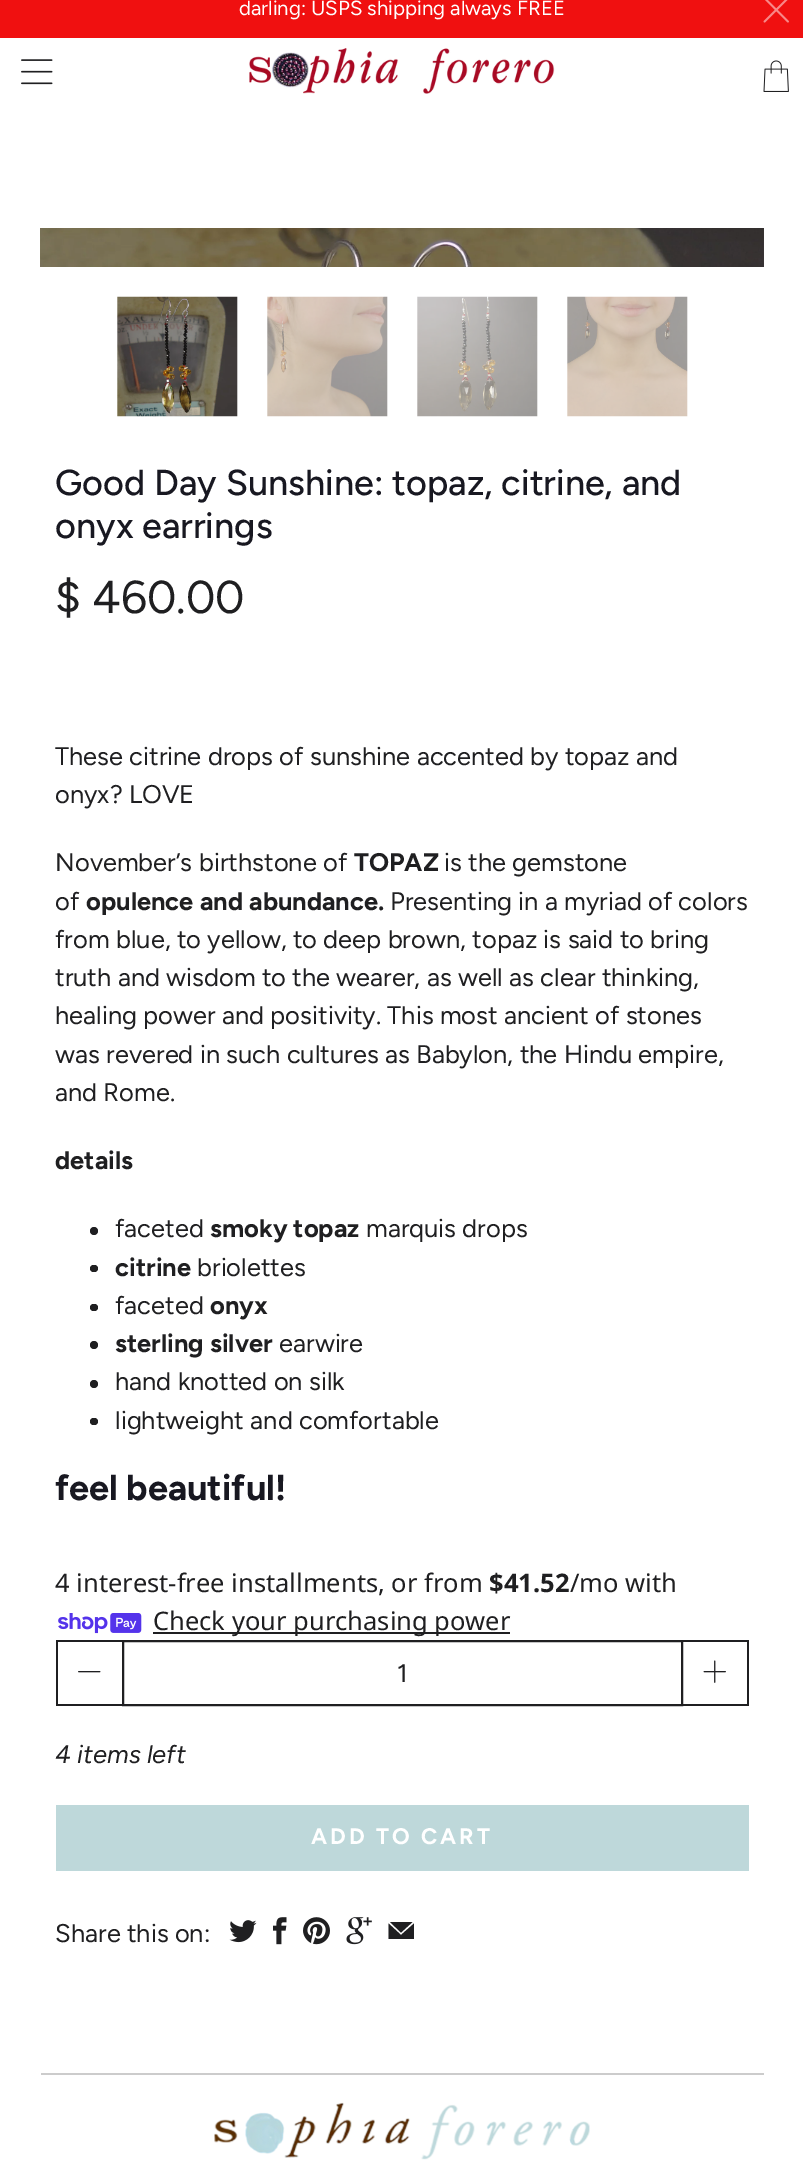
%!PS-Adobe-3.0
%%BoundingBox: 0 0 803 2167
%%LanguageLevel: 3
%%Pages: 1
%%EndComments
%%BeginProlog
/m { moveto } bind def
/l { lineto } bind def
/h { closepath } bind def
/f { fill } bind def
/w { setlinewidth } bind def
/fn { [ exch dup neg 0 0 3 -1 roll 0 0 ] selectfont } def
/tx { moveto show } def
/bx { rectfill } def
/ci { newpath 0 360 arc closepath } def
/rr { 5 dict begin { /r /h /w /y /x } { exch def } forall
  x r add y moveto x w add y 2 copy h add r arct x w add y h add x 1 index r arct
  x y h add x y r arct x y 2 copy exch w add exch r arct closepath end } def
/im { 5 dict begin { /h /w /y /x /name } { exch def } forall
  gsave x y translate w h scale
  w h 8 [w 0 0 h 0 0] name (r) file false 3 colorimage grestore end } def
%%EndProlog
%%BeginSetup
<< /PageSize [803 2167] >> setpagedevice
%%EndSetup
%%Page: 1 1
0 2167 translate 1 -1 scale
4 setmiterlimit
1 setgray
0 0 803 2167 bx
0.941 0.063 0.063 setrgbcolor
0 0 803 38 bx
/Figtree-Regular 20.4 fn
1 setgray
(darling: USPS shipping always FREE) 239 15 tx
(image0.raw) 763 0 26 23 im
(image1.raw) 21 59 32 26 im
(image2.raw) 249 48 306 46 im
(image3.raw) 763 60 26 32 im
(image4.raw) 40 228 724 39 im
(image5.raw) 117 296 121 121 im
(image6.raw) 267 296 121 121 im
(image7.raw) 417 296 121 121 im
(image8.raw) 567 296 121 121 im
/Figtree-Medium 36 fn
0.094 0.094 0.129 setrgbcolor
(Good Day Sunshine: topaz, citrine, and) 55 495 tx
(onyx earrings) 55 538 tx
/Figtree-Regular 46 fn
0.122 0.122 0.129 setrgbcolor
($ 460.00) 55 613 tx
/Figtree-Regular 25.5 fn
(These citrine drops of sunshine accented by topaz and) 55 765 tx
(onyx? LOVE) 55 803 tx
(November’s birthstone of) 55 871 tx
/Figtree-Bold 25.5 fn
(TOPAZ) 354 871 tx
/Figtree-Regular 25.5 fn
(is the gemstone) 444 871 tx
(of) 55 910 tx
/Figtree-Bold 25.5 fn
(opulence and abundance.) 86 910 tx
/Figtree-Regular 25.5 fn
(Presenting in a myriad of colors) 390 910 tx
(from blue, to yellow, to deep brown, topaz is said to bring) 55 948 tx
(truth and wisdom to the wearer, as well as clear thinking,) 55 986 tx
(healing power and positivity. This most ancient of stones) 55 1024 tx
(was revered in such cultures as Babylon, the Hindu empire,) 55 1063 tx
(and Rome.) 55 1101 tx
/Figtree-Bold 25.5 fn
(details) 55 1169 tx
94 1231 4 ci f
/Figtree-Regular 25.5 fn
(faceted) 115 1237 tx
/Figtree-Bold 25.5 fn
(smoky topaz) 210 1237 tx
/Figtree-Regular 25.5 fn
(marquis drops) 366 1237 tx
90 1265 8 7 3.5 rr f
/Figtree-Bold 25.5 fn
(citrine) 115 1276 tx
/Figtree-Regular 25.5 fn
(briolettes) 197 1276 tx
90 1304 8 7 3.5 rr f
(faceted) 115 1314 tx
/Figtree-Bold 25.5 fn
(onyx) 210 1314 tx
94 1345 4 ci f
(sterling silver) 115 1352 tx
/Figtree-Regular 25.5 fn
(earwire) 279 1352 tx
94 1384 4 ci f
(hand knotted on silk) 115 1390 tx
90 1418 8 7 3.5 rr f
(lightweight and comfortable) 115 1429 tx
/Figtree-Bold 36 fn
0.094 0.094 0.129 setrgbcolor
(feel beautiful!) 55 1500 tx
/NotoSans-Regular 25.5 fn
0.122 0.122 0.129 setrgbcolor
(4 interest-free installments, or from) 55 1592 tx
/NotoSans-Bold 25.5 fn
($41.52) 489 1592 tx
/NotoSans-Regular 25.5 fn
(/mo with) 570 1592 tx
(image9.raw) 58 1613 84 21 im
153 1632 357 2 bx
(Check your purchasing power) 153 1630 tx
56 1640 66 2 bx
56 1704 66 2 bx
56 1640 2 66 bx
(image10.raw) 78 1671 23 2 im
2 w
123 1641 559 64 rectstroke
/Figtree-Regular 25.5 fn
(1) 397 1682 tx
683 1640 66 2 bx
747 1640 2 66 bx
683 1704 66 2 bx
(image11.raw) 703 1660 23 23 im
/Figtree-Italic 25.5 fn
(4 items left) 55 1763 tx
0.745 0.847 0.855 setrgbcolor
56 1805 693 66 bx
/Figtree-Bold 22.5 fn
1 setgray
311 1844 m 3 0 (ADD TO CART) ashow
/Figtree-Regular 25.5 fn
0.122 0.122 0.129 setrgbcolor
(Share this on:) 55 1942 tx
(image12.raw) 229 1920 28 23 im
(image13.raw) 273 1917 14 28 im
(image14.raw) 303 1917 27 28 im
(image15.raw) 346 1917 26 28 im
412.5 1922 m 401 1932.5 l 390 1922 l h 401 1935 m 414 1923.5 l 414 1939 l 388.5 1939 l 388.5 1923.5 l h f
0.8 setgray
41 2073 723 2 bx
(image16.raw) 214 2102 376 58 im
showpage
%%EOF
